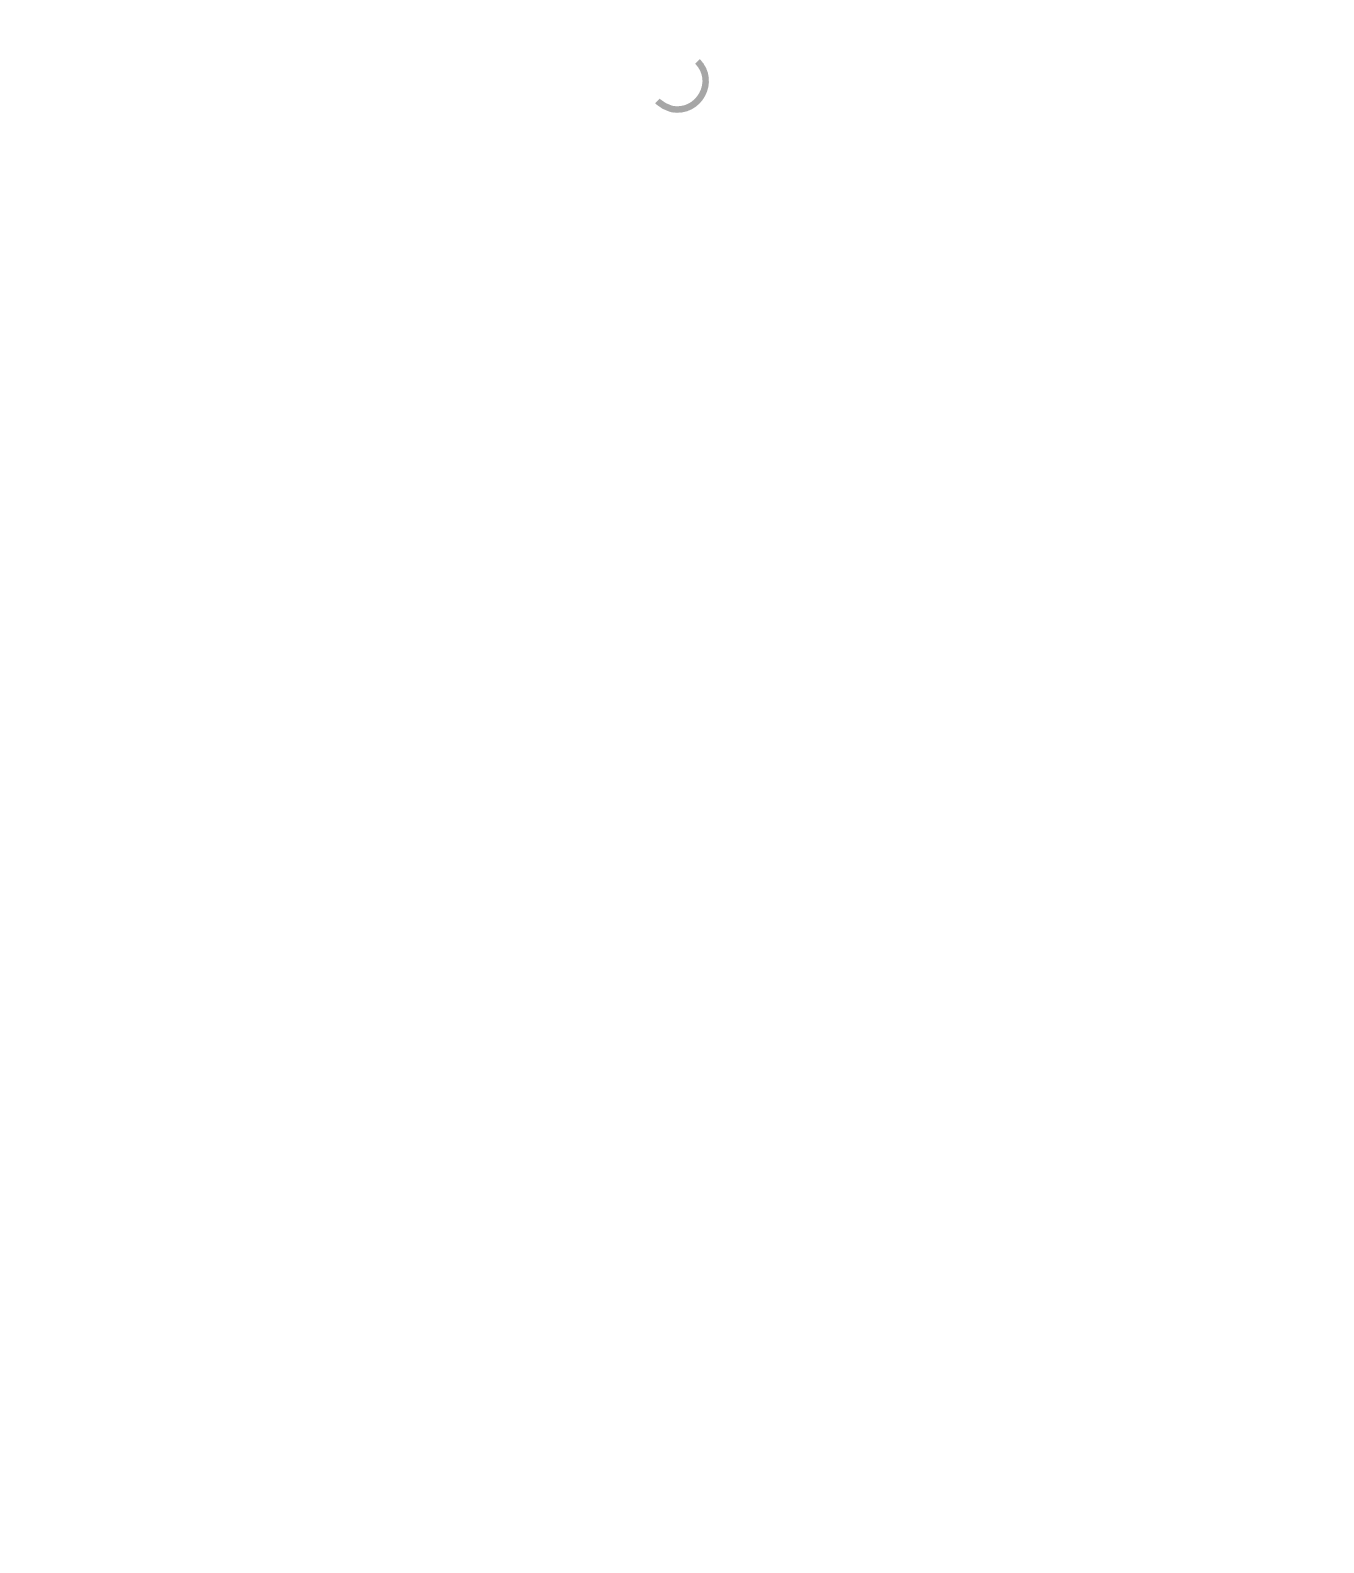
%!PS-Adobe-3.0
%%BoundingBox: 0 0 1354 1573
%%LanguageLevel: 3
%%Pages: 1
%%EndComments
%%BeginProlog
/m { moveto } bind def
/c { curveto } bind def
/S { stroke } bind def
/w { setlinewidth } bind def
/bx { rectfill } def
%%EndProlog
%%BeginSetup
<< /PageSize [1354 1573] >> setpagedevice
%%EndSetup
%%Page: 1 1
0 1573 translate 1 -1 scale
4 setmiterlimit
1 setgray
0 0 1354 1573 bx
0.651 setgray
6.2 w
697.5 61.5 m 717 81 699 114 672 109 c 666.5 107.5 661.5 105 657.5 101 c S
showpage
%%EOF
